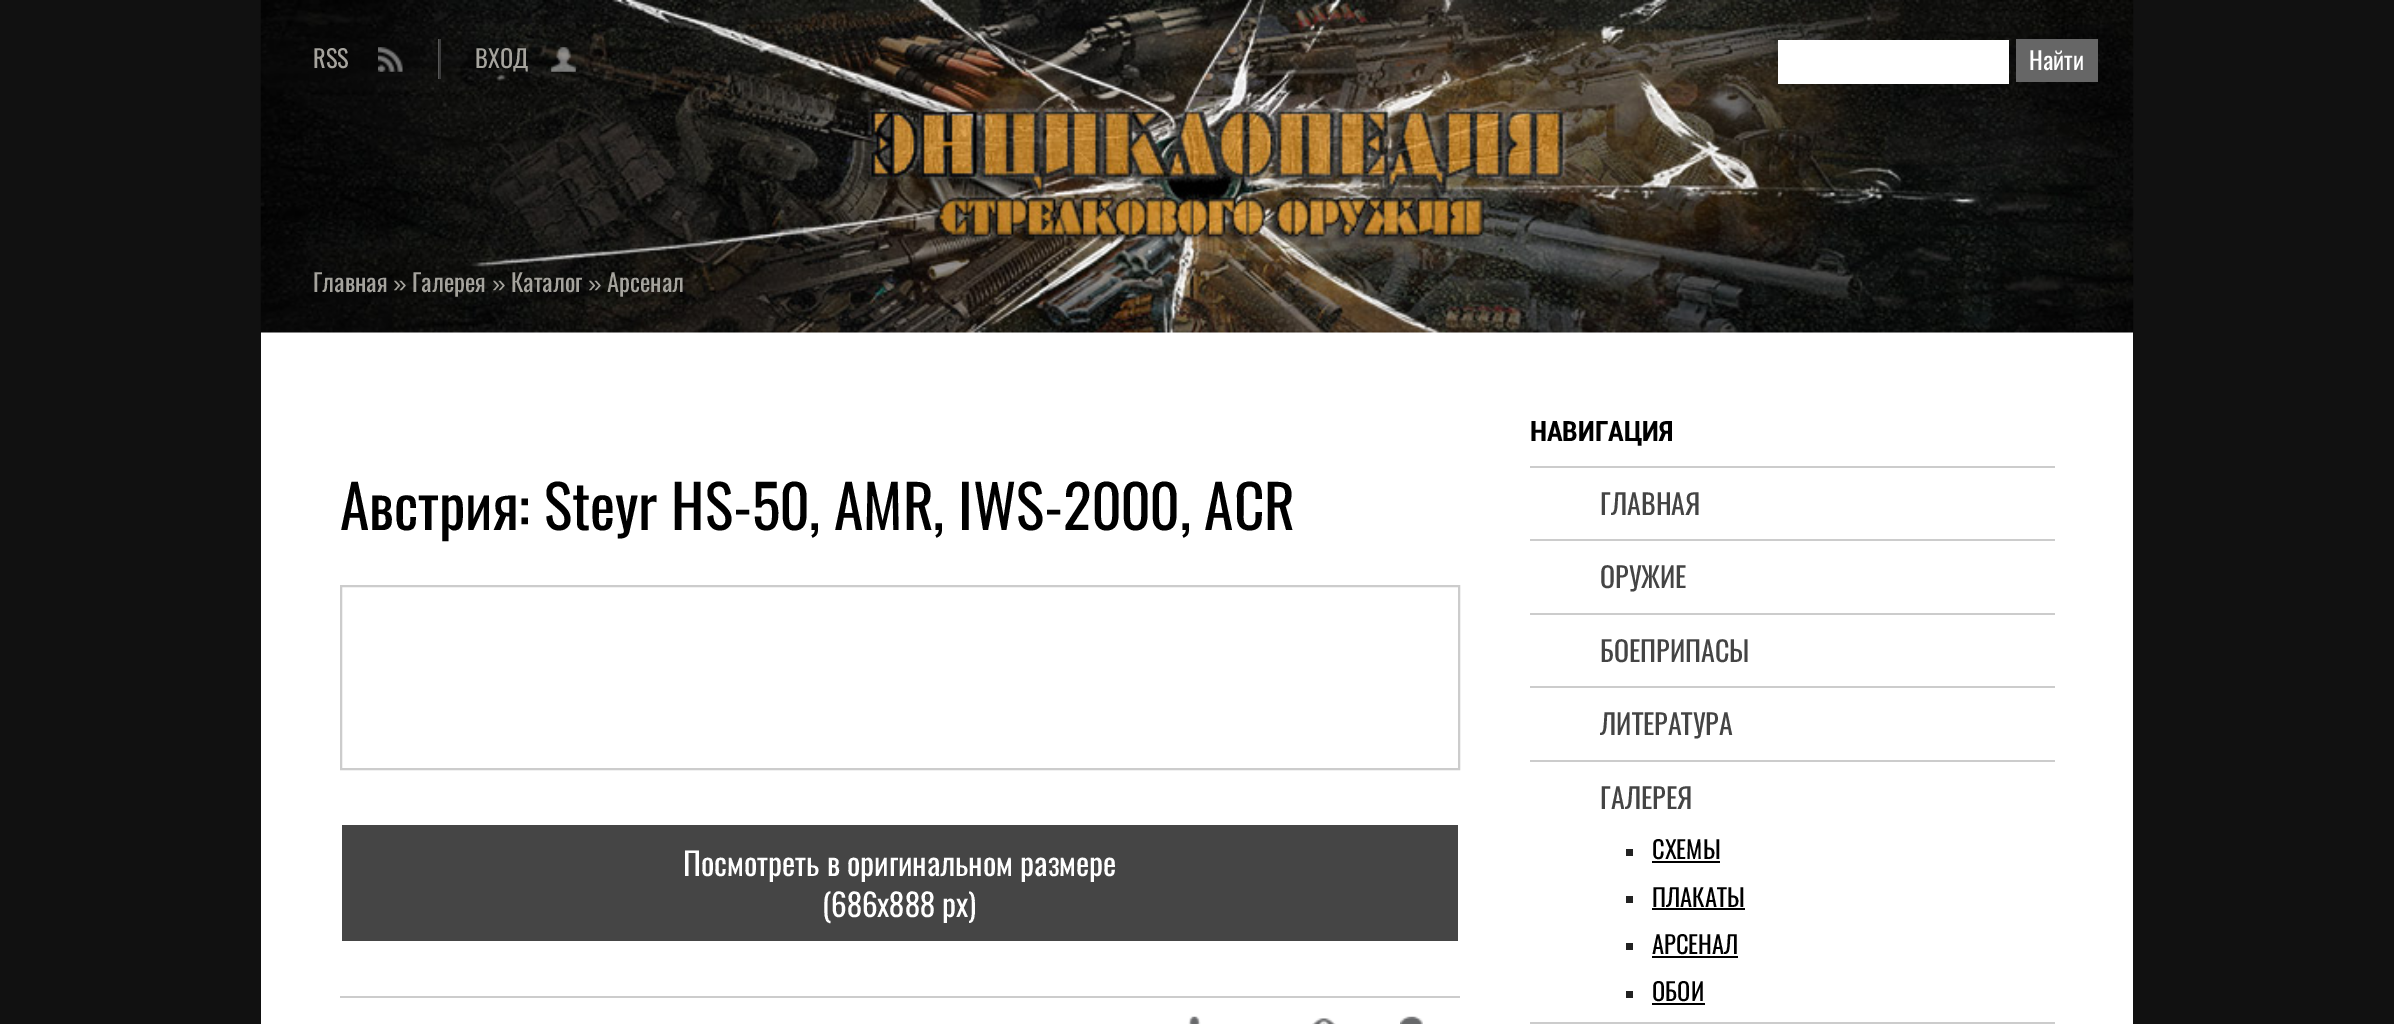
%!PS-Adobe-3.0
%%BoundingBox: 0 0 2394 1024
%%LanguageLevel: 3
%%Pages: 1
%%EndComments
%%BeginProlog
/w { setlinewidth } bind def
/fn { [ exch dup neg 0 0 3 -1 roll 0 0 ] selectfont } def
/tx { moveto show } def
/bx { rectfill } def
/im { 5 dict begin { /h /w /y /x /name } { exch def } forall
  gsave x y translate w h scale
  w h 8 [w 0 0 h 0 0] name (r) file false 3 colorimage grestore end } def
%%EndProlog
%%BeginSetup
<< /PageSize [2394 1024] >> setpagedevice
%%EndSetup
%%Page: 1 1
0 1024 translate 1 -1 scale
4 setmiterlimit
0.067 setgray
0 0 2394 1024 bx
1 setgray
261 332 1872 692 bx
(image0.raw) 260 0 1874 333 im
(image1.raw) 378 47 25 25 im
0.341 setgray
438 39 1 40 bx
/Oswald-Regular 24.5 fn
0.647 0.639 0.616 setrgbcolor
(RSS) 313 68 tx
(image2.raw) 551 47 25 25 im
0.227 setgray
439 39 2 40 bx
0.647 0.639 0.616 setrgbcolor
(ВХОД) 475 68 tx
1 setgray
1778 40 231 44 bx
0.4 setgray
2016 39 82 43 bx
1 setgray
(Найти) 2029 70 tx
0.647 0.639 0.616 setrgbcolor
(Главная) 313 292 tx
/LiberationSans-Regular 24.5 fn
(») 393 292 tx
/Oswald-Regular 24.5 fn
(Галерея) 412 292 tx
/LiberationSans-Regular 24.5 fn
(») 492 292 tx
/Oswald-Regular 24.5 fn
(Каталог) 511 292 tx
/LiberationSans-Regular 24.5 fn
(») 588 292 tx
/Oswald-Regular 24.5 fn
(Арсенал) 607 292 tx
/Oswald-Regular 59.5 fn
0 setgray
(Австрия: Steyr HS-50, AMR, IWS-2000, ACR) 340 530 tx
0.8 setgray
2 w
341 586 1118 183 rectstroke
0.271 setgray
342 825 1116 116 bx
/Oswald-Regular 31.5 fn
1 setgray
(Посмотреть в оригинальном размере) 683 876 tx
(\(686x888 px\)) 822 917 tx
0.8 setgray
340 996 1120 2 bx
(image3.raw) 1188 1016 13 8 im
(image4.raw) 1312 1018 24 6 im
(image5.raw) 1400 1016 23 8 im
/RobotoCondensed-Bold 28 fn
0 setgray
(НАВИГАЦИЯ) 1530 441 tx
0.8 setgray
1530 466 525 2 bx
/Oswald-Regular 28 fn
0.267 setgray
(ГЛАВНАЯ) 1600 515 tx
0.8 setgray
1530 539 525 2 bx
0.267 setgray
(ОРУЖИЕ) 1600 588 tx
0.8 setgray
1530 613 525 2 bx
0.267 setgray
(БОЕПРИПАСЫ) 1600 662 tx
0.8 setgray
1530 686 525 2 bx
0.267 setgray
(ЛИТЕРАТУРА) 1600 735 tx
0.8 setgray
1530 760 525 2 bx
0.267 setgray
(ГАЛЕРЕЯ) 1600 809 tx
0.133 setgray
1626 849 7 7 bx
/Oswald-Regular 24.5 fn
0 setgray
(СХЕМЫ) 1652 859 tx
1652 861 68 2 bx
0.133 setgray
1626 896 7 7 bx
0 setgray
(ПЛАКАТЫ) 1652 907 tx
1652 908 93 2 bx
0.133 setgray
1626 943 7 7 bx
0 setgray
(АРСЕНАЛ) 1652 954 tx
1652 956 86 2 bx
0.133 setgray
1626 991 7 7 bx
0 setgray
(ОБОИ) 1652 1001 tx
1652 1003 53 2 bx
0.8 setgray
1530 1022 525 2 bx
showpage
%%EOF
